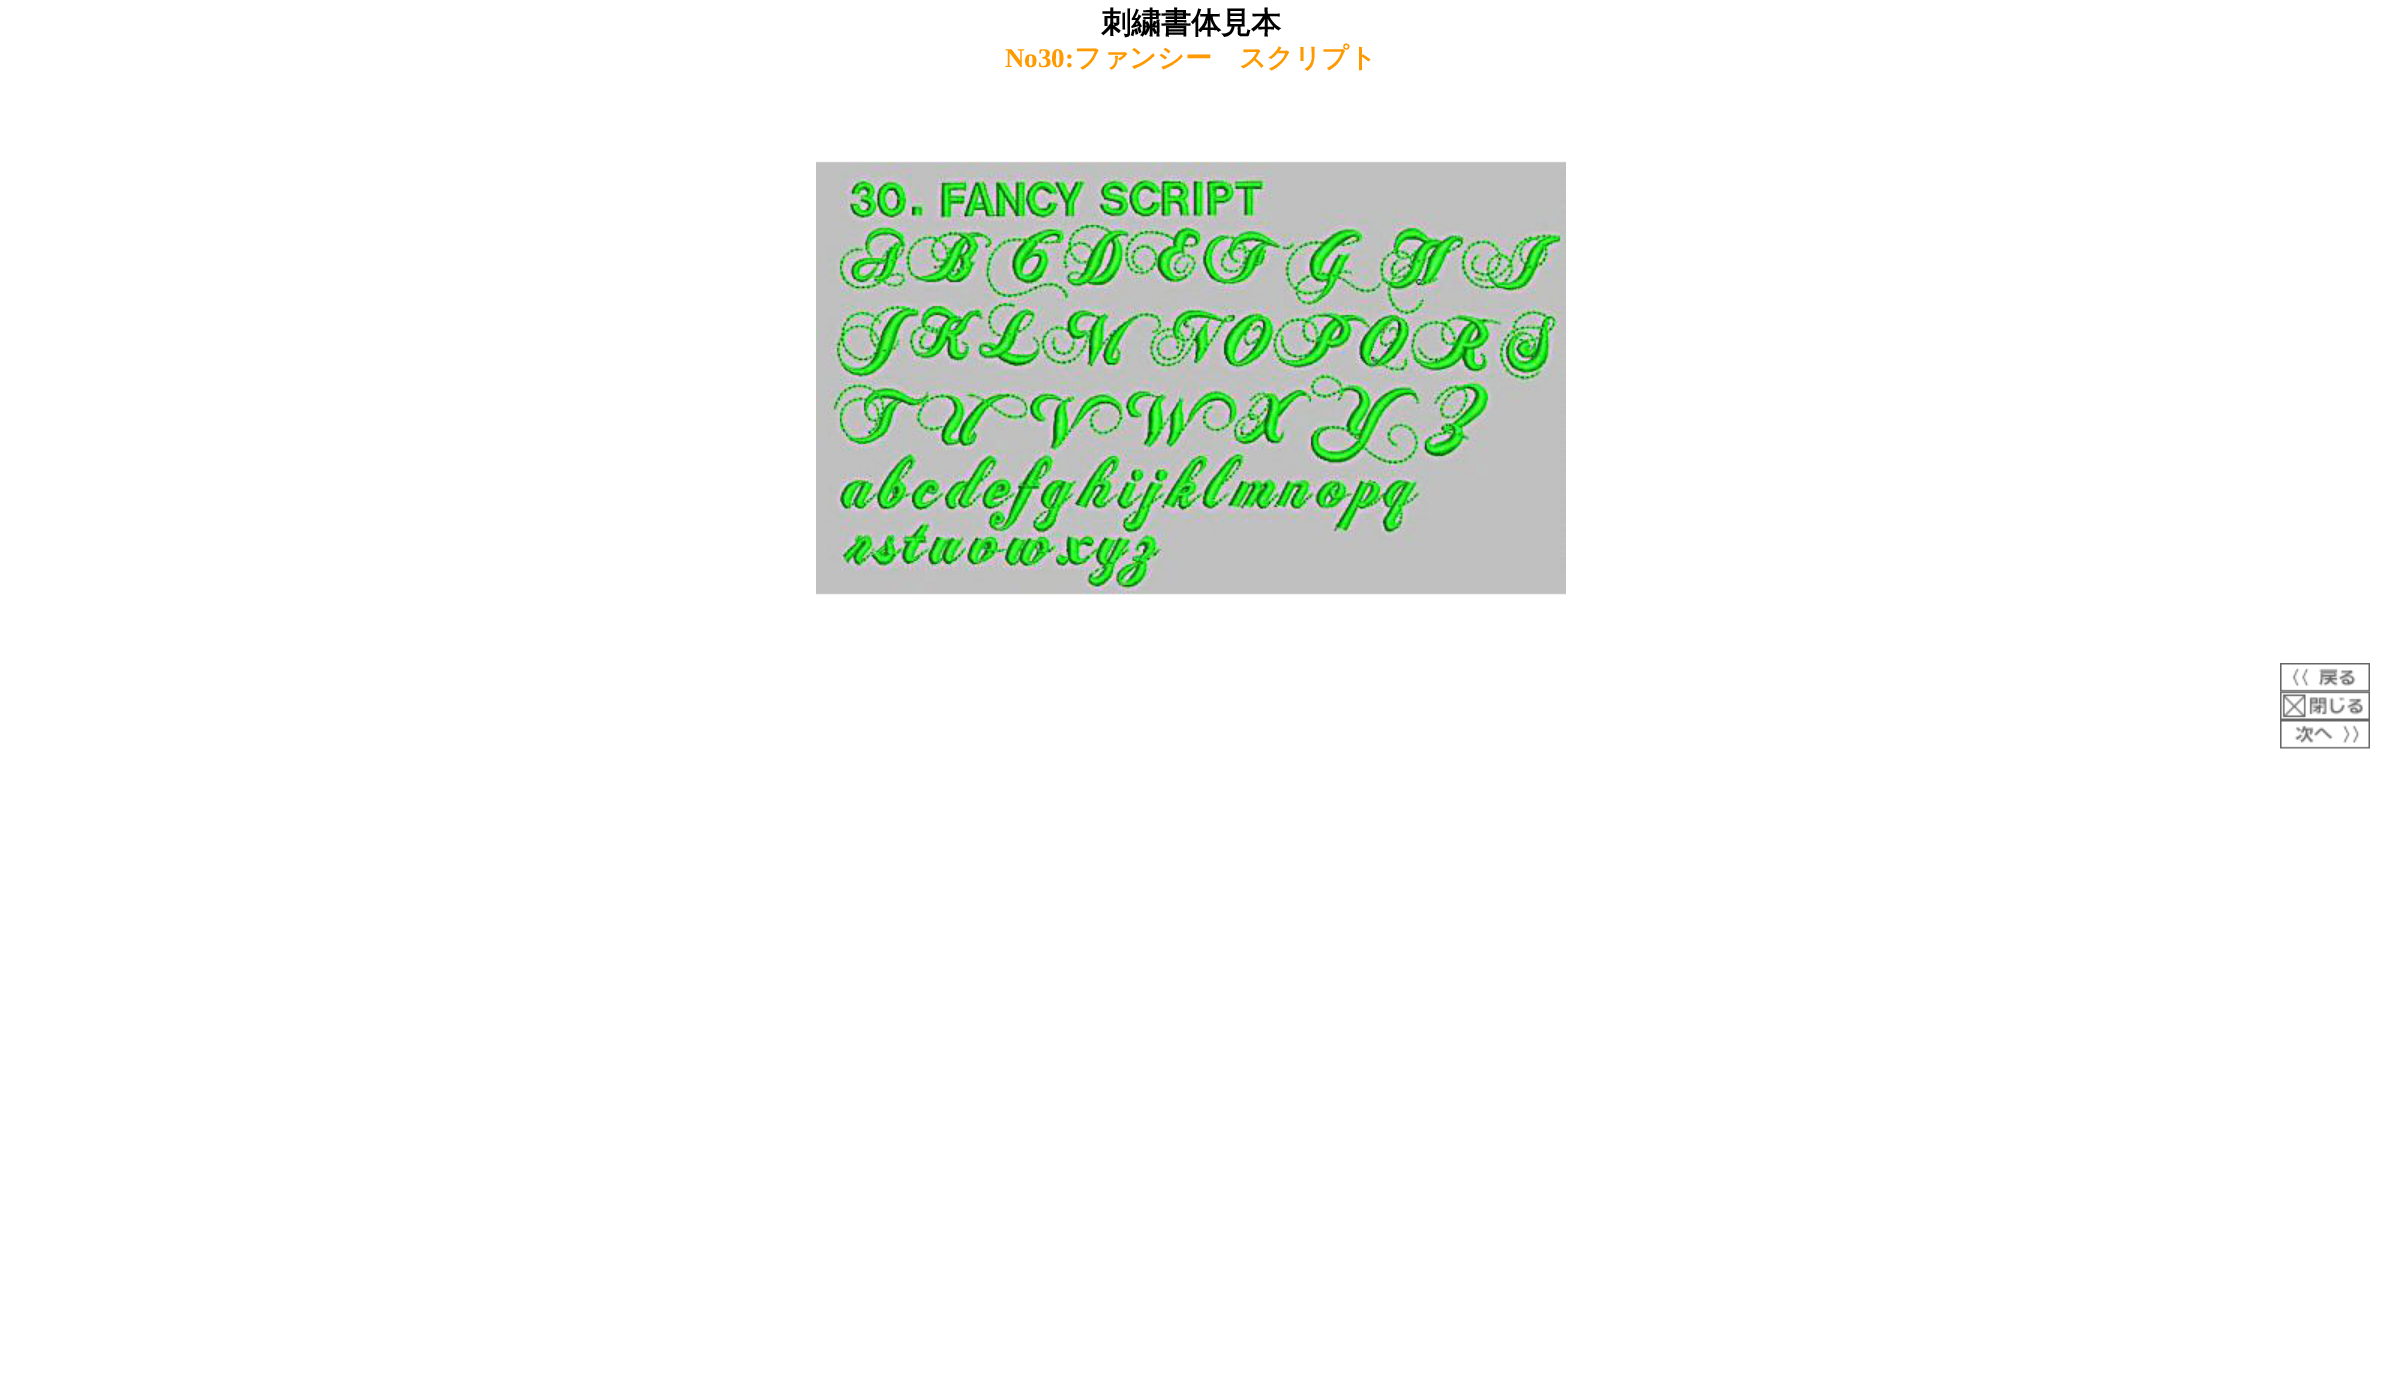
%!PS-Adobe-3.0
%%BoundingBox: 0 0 2382 1395
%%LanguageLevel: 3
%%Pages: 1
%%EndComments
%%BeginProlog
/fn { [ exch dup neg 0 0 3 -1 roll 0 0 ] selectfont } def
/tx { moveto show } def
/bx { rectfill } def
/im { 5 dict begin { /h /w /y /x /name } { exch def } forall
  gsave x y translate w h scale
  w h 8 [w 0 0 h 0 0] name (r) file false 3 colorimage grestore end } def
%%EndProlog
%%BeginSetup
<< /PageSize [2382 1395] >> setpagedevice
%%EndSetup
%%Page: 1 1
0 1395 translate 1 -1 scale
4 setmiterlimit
1 setgray
0 0 2382 1395 bx
/WenQuanYiZenHei-Bold 30 fn
0 setgray
(刺繍書体見本) 1101 33 tx
/LiberationSerif-Bold 27 fn
1 0.6 0 setrgbcolor
(No30:) 1005 67 tx
/WenQuanYiZenHei-Bold 27 fn
(ファンシー　スクリプト) 1074 67 tx
(image0.raw) 816 161 750 434 im
(image1.raw) 2280 663 90 29 im
(image2.raw) 2280 691 90 29 im
(image3.raw) 2280 720 90 29 im
showpage
%%EOF
